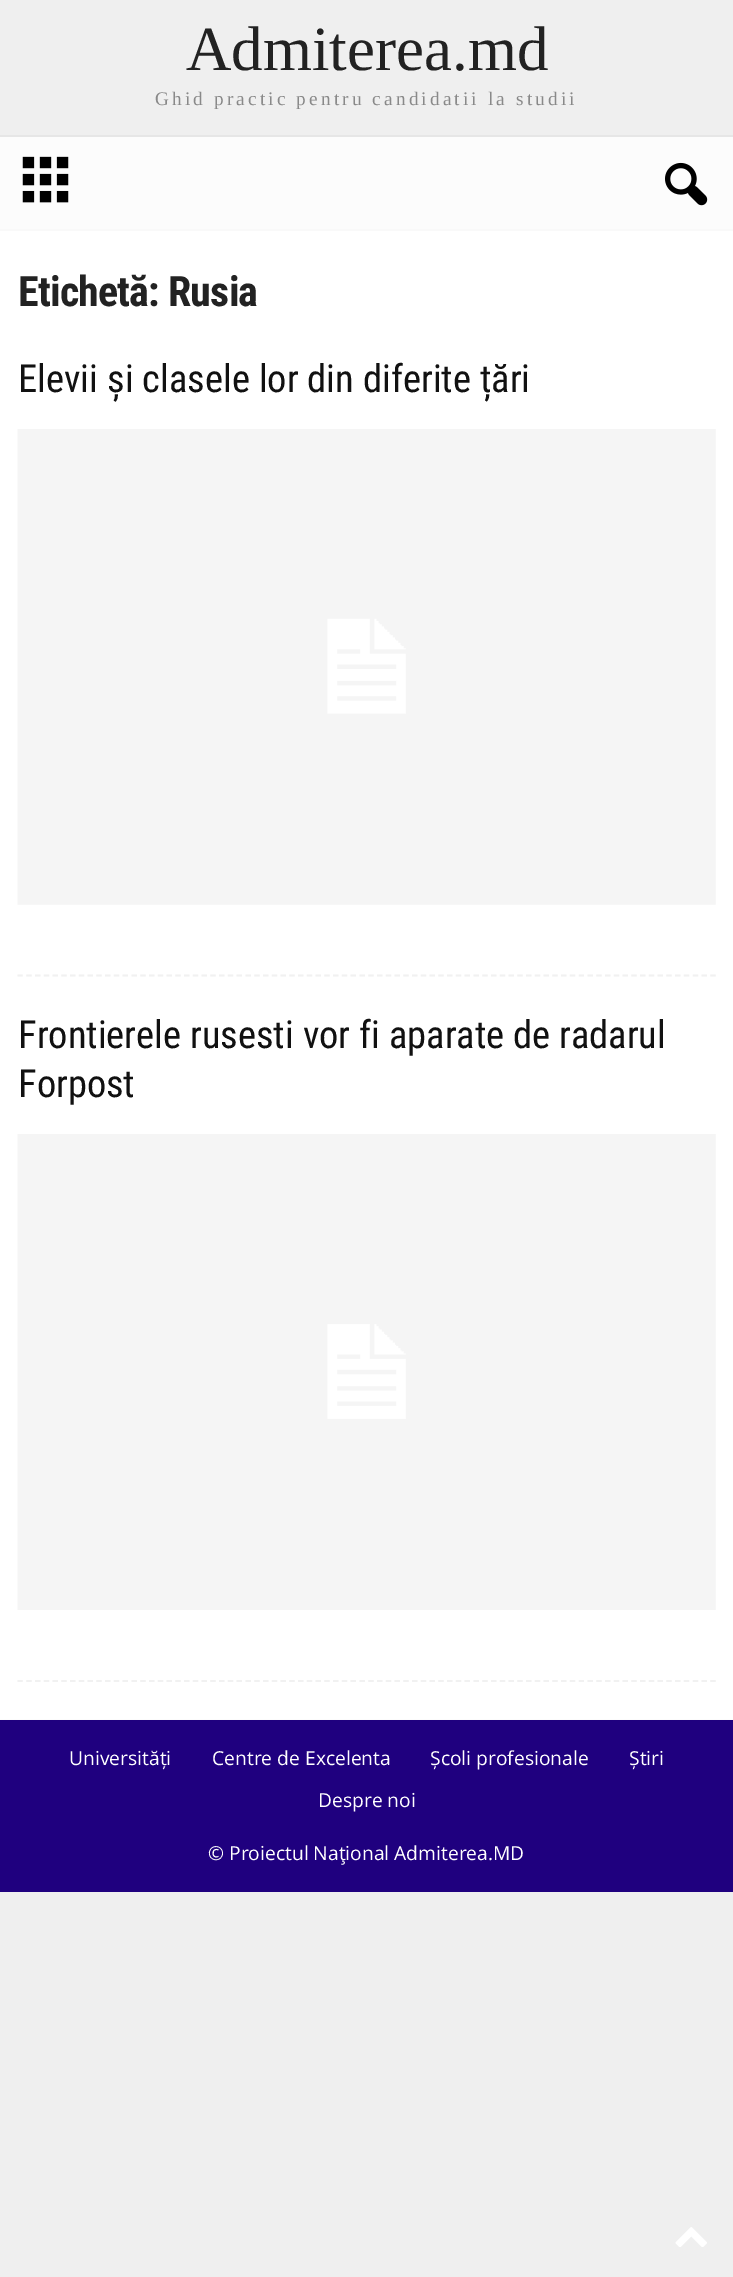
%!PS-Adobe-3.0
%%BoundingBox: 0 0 733 2277
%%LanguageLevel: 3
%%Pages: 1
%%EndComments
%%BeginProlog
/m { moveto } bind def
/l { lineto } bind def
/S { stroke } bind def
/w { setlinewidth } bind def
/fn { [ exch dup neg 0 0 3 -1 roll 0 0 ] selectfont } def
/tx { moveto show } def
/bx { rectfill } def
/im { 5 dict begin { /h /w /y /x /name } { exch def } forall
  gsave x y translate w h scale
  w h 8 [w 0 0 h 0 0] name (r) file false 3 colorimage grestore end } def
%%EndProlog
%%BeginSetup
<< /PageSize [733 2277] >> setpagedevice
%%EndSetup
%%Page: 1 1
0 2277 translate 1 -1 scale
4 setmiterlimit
0.937 setgray
0 0 733 2277 bx
/LiberationSerif-Regular 63 fn
0.133 setgray
(Admiterea.md) 186 70 tx
/LiberationSerif-Regular 19.25 fn
0.537 setgray
155 105 m 3.15 0 (Ghid practic pentru candidatii la studii) ashow
0.988 setgray
0 137 733 92 bx
0.902 setgray
0 135 733 2 bx
0.976 setgray
0 229 733 2 bx
(image0.raw) 22 156 47 47 im
(image1.raw) 665 162 43 44 im
1 setgray
0 231 733 1488 bx
0.988 setgray
0 1719 733 1 bx
/RobotoCondensed-Bold 42 fn
0.133 setgray
18 306 m -0.8 0 (Etichetă: Rusia) ashow
0.945 setgray
1.8 w
[5.25 3.52] 0 setdash
17.5 975.5 m 716 975.5 l S
/RobotoCondensed-Regular 38.5 fn
0.067 setgray
(Elevii și clasele lor din diferite țări) 18 392 tx
(image2.raw) 17 429 699 476 im
0.945 setgray
17.5 1681 m 716 1681 l S
0.067 setgray
(Frontierele rusesti vor fi aparate de radarul) 18 1048 tx
(Forpost) 18 1097 tx
(image3.raw) 17 1134 699 476 im
0.122 0 0.498 setrgbcolor
0 1721 733 171 bx
0.122 0 0.494 setrgbcolor
0 1720 733 1 bx
/OpenSans-Regular 19.25 fn
1 setgray
(Universități) 69 1765 tx
(Centre de Excelenta) 212 1765 tx
(Școli profesionale) 430 1765 tx
(Știri) 629 1765 tx
(Despre noi) 318 1807 tx
(© Proiectul Naţional Admiterea.MD) 208 1860 tx
(image4.raw) 675 2227 32 20 im
showpage
%%EOF
